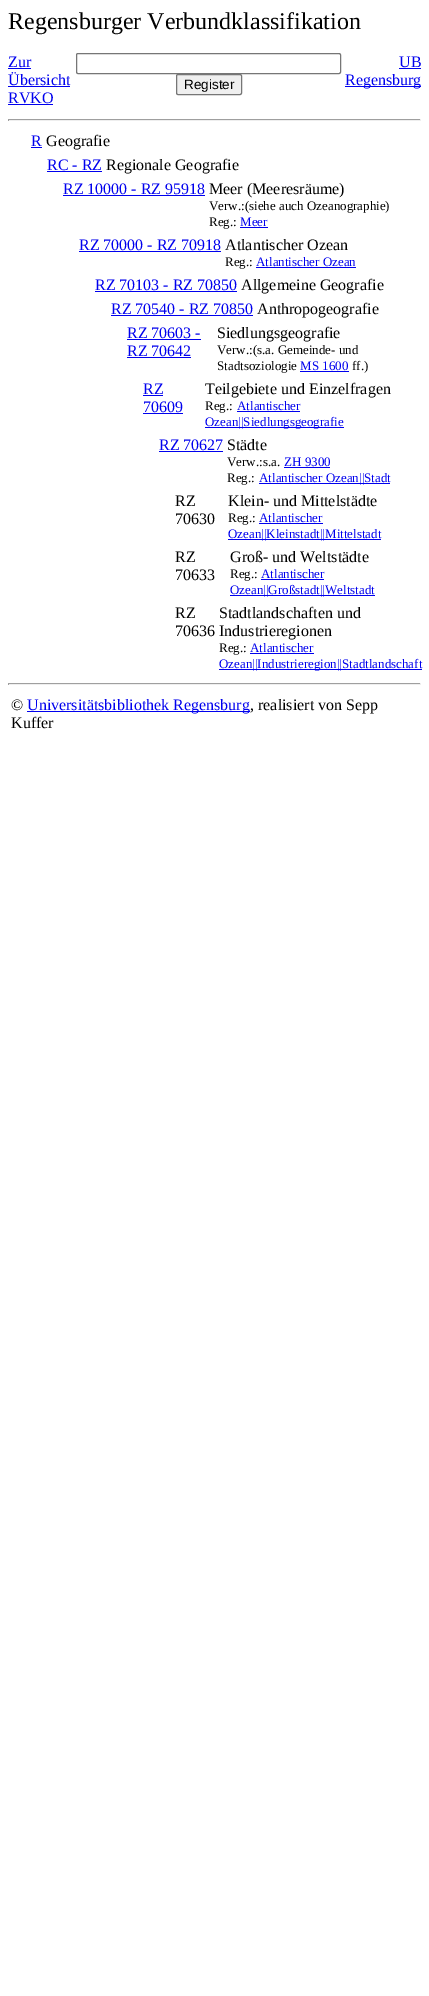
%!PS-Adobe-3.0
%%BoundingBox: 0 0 429 1996
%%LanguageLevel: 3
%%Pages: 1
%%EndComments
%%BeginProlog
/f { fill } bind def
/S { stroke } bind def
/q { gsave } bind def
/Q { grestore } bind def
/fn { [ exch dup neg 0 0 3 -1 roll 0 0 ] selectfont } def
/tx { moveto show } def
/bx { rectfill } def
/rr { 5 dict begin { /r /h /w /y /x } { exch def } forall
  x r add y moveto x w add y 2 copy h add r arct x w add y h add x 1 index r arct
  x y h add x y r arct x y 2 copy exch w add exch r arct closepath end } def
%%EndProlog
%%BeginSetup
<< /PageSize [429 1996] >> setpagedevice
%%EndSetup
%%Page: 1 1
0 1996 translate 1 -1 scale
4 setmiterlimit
1 setgray
0 0 429 1996 bx
/LiberationSerif-Regular 24 fn
0 setgray
(Regensburger Verbundklassifikation) 8 29 tx
/LiberationSerif-Regular 16 fn
0 0 0.933 setrgbcolor
(Zur) 8 67 tx
8 68 23 1 bx
(Übersicht) 8 85 tx
8 86 62 1 bx
(RVKO) 8 103 tx
8 104 45 1 bx
0.463 setgray
76.5 53.5 264 20 1.5 rr S
0.937 setgray
176.5 74.5 65 20 1.5 rr q f Q
0.463 setgray
S
/LiberationSans-Regular 13.5 fn
0 setgray
(Register) 184 89 tx
/LiberationSerif-Regular 16 fn
0 0 0.933 setrgbcolor
(UB) 399 67 tx
399 68 22 1 bx
345 86 76 1 bx
(Regensburg) 345 85 tx
0.624 setgray
8 119 413 1 bx
0.933 setgray
420 119 1 2 bx
8 120 413 1 bx
0.624 setgray
8 119 1 2 bx
0 0 0.933 setrgbcolor
(R) 31 146 tx
31 147 11 1 bx
0 setgray
(Geografie) 46 146 tx
0 0 0.933 setrgbcolor
(RC - RZ) 47 170 tx
47 171 55 1 bx
0 setgray
(Regionale Geografie) 106 170 tx
0 0 0.933 setrgbcolor
(RZ 10000 - RZ 95918) 63 194 tx
63 195 142 1 bx
0 setgray
(Meer \(Meeresräume\)) 209 194 tx
/LiberationSerif-Regular 13 fn
(Verw.:\(siehe auch Ozeanographie\)) 209 210 tx
(Reg.:) 209 226 tx
0 0 0.933 setrgbcolor
(Meer) 240 226 tx
240 227 28 1 bx
/LiberationSerif-Regular 16 fn
(RZ 70000 - RZ 70918) 79 250 tx
79 251 142 1 bx
0 setgray
(Atlantischer Ozean) 225 250 tx
/LiberationSerif-Regular 13 fn
(Reg.:) 225 266 tx
0 0 0.933 setrgbcolor
(Atlantischer Ozean) 256 266 tx
256 267 100 1 bx
/LiberationSerif-Regular 16 fn
(RZ 70103 - RZ 70850) 95 290 tx
95 291 142 1 bx
0 setgray
(Allgemeine Geografie) 241 290 tx
0 0 0.933 setrgbcolor
(RZ 70540 - RZ 70850) 111 314 tx
111 315 142 1 bx
0 setgray
(Anthropogeografie) 257 314 tx
0 0 0.933 setrgbcolor
(RZ 70603 -) 127 338 tx
127 339 74 1 bx
(RZ 70642) 127 356 tx
127 357 64 1 bx
0 setgray
(Siedlungsgeografie) 217 338 tx
/LiberationSerif-Regular 13 fn
(Verw.:\(s.a. Gemeinde- und) 217 354 tx
(Stadtsoziologie) 217 370 tx
0 0 0.933 setrgbcolor
(MS 1600) 300 370 tx
300 371 49 1 bx
0 setgray
(ff.\)) 352 370 tx
/LiberationSerif-Regular 16 fn
0 0 0.933 setrgbcolor
(RZ) 143 394 tx
143 395 20 1 bx
(70609) 143 412 tx
143 413 40 1 bx
0 setgray
(Teilgebiete und Einzelfragen) 205 394 tx
/LiberationSerif-Regular 13 fn
(Reg.:) 205 410 tx
0 0 0.933 setrgbcolor
(Atlantischer) 237 410 tx
237 411 63 1 bx
205 427 139 1 bx
(Ozean||Siedlungsgeografie) 205 426 tx
/LiberationSerif-Regular 16 fn
(RZ 70627) 159 450 tx
159 451 64 1 bx
0 setgray
(Städte) 227 450 tx
/LiberationSerif-Regular 13 fn
(Verw.:s.a.) 227 466 tx
0 0 0.933 setrgbcolor
(ZH 9300) 284 466 tx
284 467 46 1 bx
0 setgray
(Reg.:) 227 482 tx
0 0 0.933 setrgbcolor
259 483 131 1 bx
(Atlantischer Ozean||Stadt) 259 482 tx
/LiberationSerif-Regular 16 fn
0 setgray
(RZ) 175 506 tx
(70630) 175 524 tx
(Klein- und Mittelstädte) 228 506 tx
/LiberationSerif-Regular 13 fn
(Reg.:) 228 522 tx
0 0 0.933 setrgbcolor
(Atlantischer) 259 522 tx
259 523 64 1 bx
228 539 153 1 bx
(Ozean||Kleinstadt||Mittelstadt) 228 538 tx
/LiberationSerif-Regular 16 fn
0 setgray
(RZ) 175 562 tx
(70633) 175 580 tx
(Groß- und Weltstädte) 230 562 tx
/LiberationSerif-Regular 13 fn
(Reg.:) 230 578 tx
0 0 0.933 setrgbcolor
(Atlantischer) 261 578 tx
261 579 63 1 bx
230 595 145 1 bx
(Ozean||Großstadt||Weltstadt) 230 594 tx
/LiberationSerif-Regular 16 fn
0 setgray
(Stadtlandschaften und) 219 618 tx
/LiberationSerif-Regular 13 fn
(Reg.:) 219 652 tx
0 0 0.933 setrgbcolor
(Atlantischer) 250 652 tx
250 653 64 1 bx
219 669 203 1 bx
(Ozean||Industrieregion||Stadtlandschaft) 219 668 tx
/LiberationSerif-Regular 16 fn
0 setgray
(RZ) 175 618 tx
(70636 Industrieregionen) 175 636 tx
0.624 setgray
8 683 413 1 bx
0.933 setgray
420 683 1 2 bx
8 684 413 1 bx
0.624 setgray
8 683 1 2 bx
0 setgray
(©) 11 710 tx
0 0 0.933 setrgbcolor
27 711 223 1 bx
(Universitätsbibliothek Regensburg) 27 710 tx
0 setgray
(, realisiert von Sepp) 250 710 tx
(Kuffer) 11 728 tx
showpage
%%EOF
